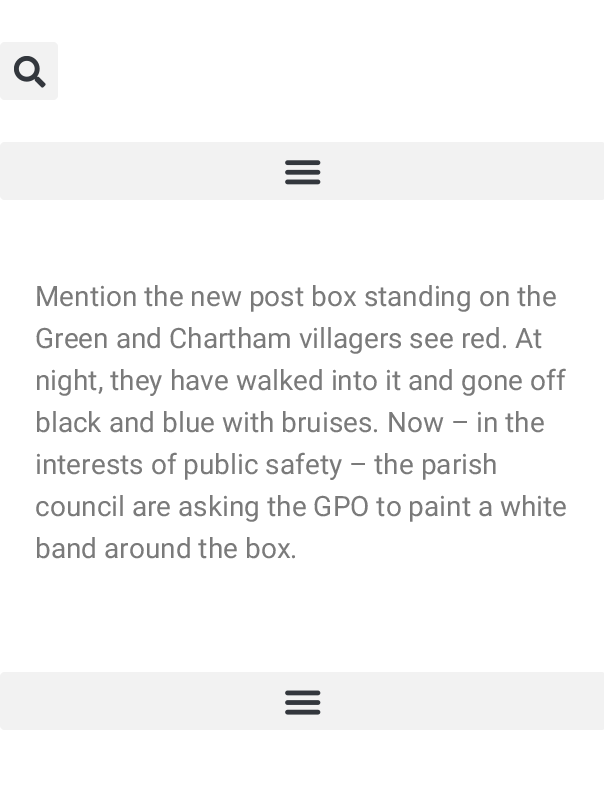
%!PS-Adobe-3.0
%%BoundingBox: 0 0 604 790
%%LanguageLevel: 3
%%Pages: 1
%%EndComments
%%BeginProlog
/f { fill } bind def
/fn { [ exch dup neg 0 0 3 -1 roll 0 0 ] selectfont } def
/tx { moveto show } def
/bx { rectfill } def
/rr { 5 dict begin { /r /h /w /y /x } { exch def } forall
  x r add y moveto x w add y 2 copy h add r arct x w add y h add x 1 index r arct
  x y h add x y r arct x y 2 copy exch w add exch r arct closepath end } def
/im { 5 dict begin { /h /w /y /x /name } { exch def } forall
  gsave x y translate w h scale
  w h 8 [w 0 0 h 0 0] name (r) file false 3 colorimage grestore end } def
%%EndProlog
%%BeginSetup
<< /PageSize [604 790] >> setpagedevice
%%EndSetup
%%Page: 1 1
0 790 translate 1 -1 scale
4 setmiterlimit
1 setgray
0 0 604 790 bx
0.949 setgray
0 42 58 58 5 rr f
(image0.raw) 14 56 32 32 im
0 142 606 58 5 rr f
(image1.raw) 285 160 36 25 im
/Roboto-Regular 28 fn
0.478 setgray
(Mention the new post box standing on the) 35 306 tx
(Green and Chartham villagers see red. At) 35 348 tx
(night, they have walked into it and gone off) 35 390 tx
(black and blue with bruises. Now – in the) 35 432 tx
(interests of public safety – the parish) 35 474 tx
(council are asking the GPO to paint a white) 35 516 tx
(band around the box.) 35 558 tx
0.949 setgray
0 672 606 58 5 rr f
(image2.raw) 285 690 36 25 im
showpage
%%EOF
